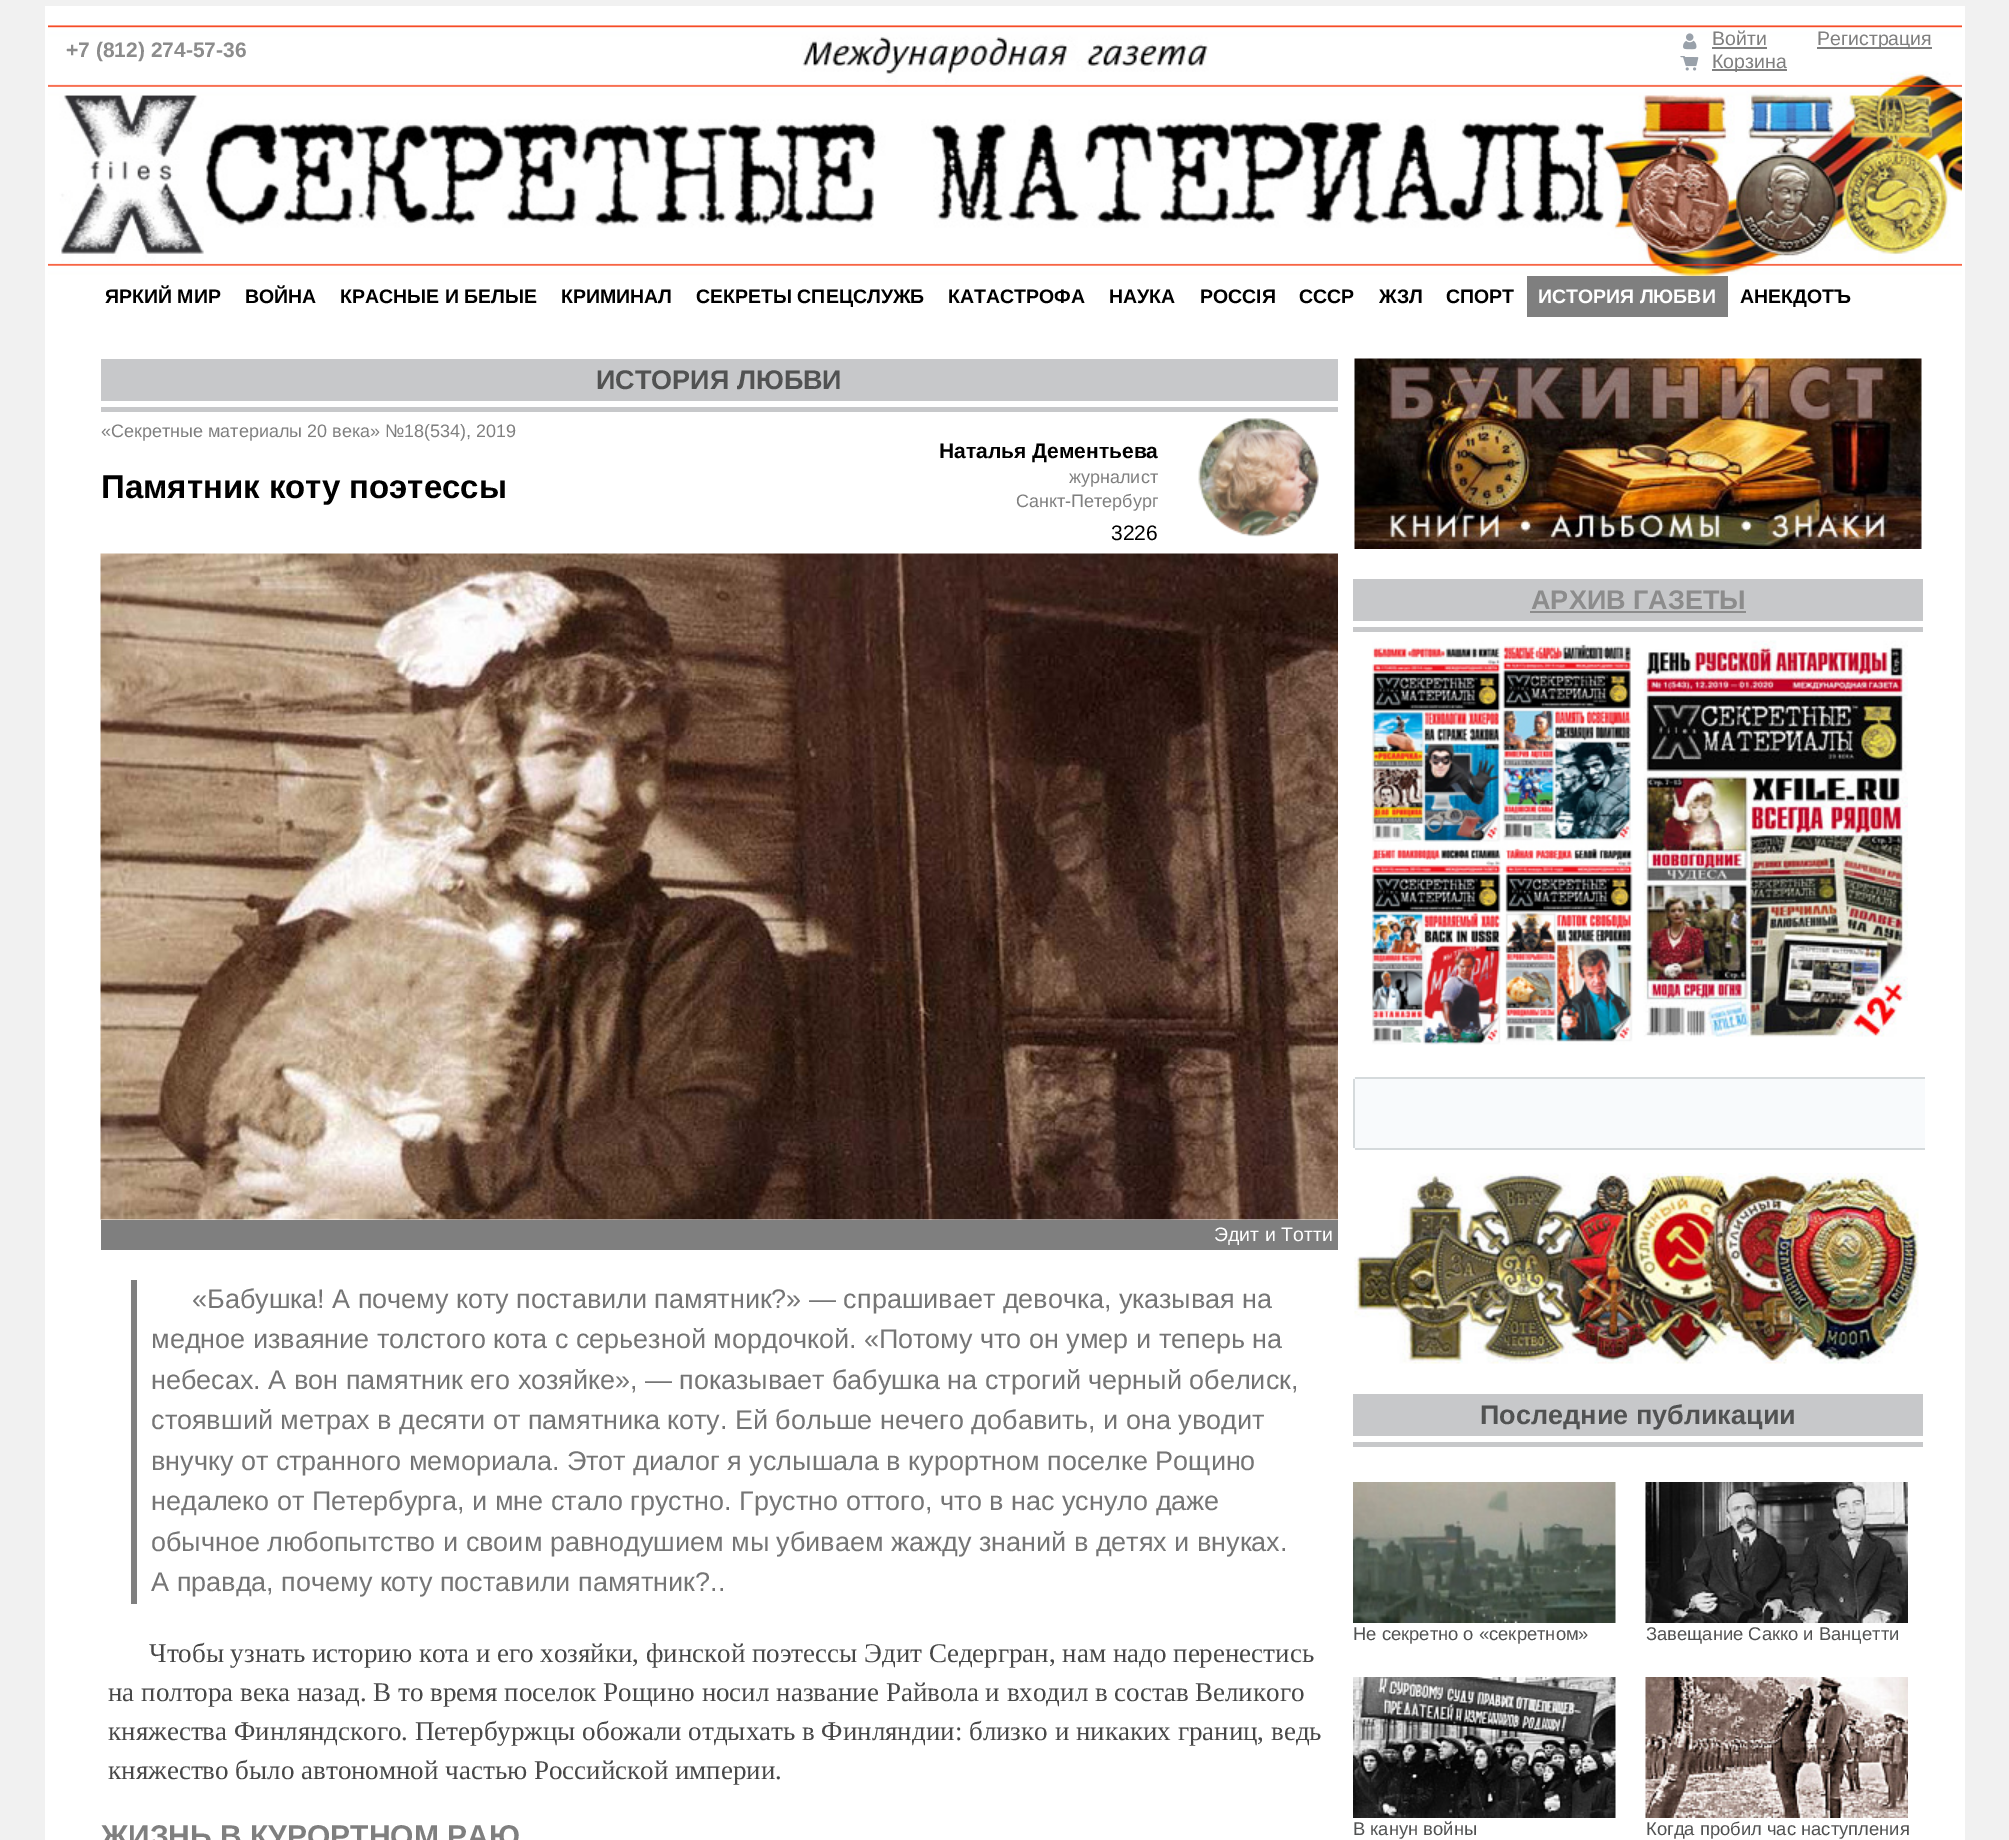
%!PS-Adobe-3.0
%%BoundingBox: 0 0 2009 1840
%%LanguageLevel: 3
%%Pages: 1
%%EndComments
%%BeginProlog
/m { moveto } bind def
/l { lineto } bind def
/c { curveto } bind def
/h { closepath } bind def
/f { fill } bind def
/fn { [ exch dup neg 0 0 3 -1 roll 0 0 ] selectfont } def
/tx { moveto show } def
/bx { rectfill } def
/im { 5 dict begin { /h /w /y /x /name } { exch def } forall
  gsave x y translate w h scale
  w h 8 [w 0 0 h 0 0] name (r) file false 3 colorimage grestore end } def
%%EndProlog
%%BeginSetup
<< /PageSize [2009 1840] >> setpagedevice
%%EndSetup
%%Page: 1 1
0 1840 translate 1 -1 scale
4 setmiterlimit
0.945 setgray
0 0 2009 1840 bx
1 setgray
45 6 1920 1834 bx
(image0.raw) 48 25 1914 251 im
/LiberationSans-Bold 21 fn
0.549 setgray
(+7 \(812\) 274-57-36) 66 57 tx
(image1.raw) 1683 33 14 17 im
/LiberationSans-Regular 19.5 fn
0.498 setgray
(Войти) 1712 45 tx
1712 47 55 2 bx
1817 47 115 2 bx
(Регистрация) 1817 45 tx
(image2.raw) 1680 56 19 15 im
1712 69 75 2 bx
(Корзина) 1712 68 tx
/LiberationSans-Bold 19.5 fn
0 setgray
(ЯРКИЙ МИР) 105 303 tx
(ВОЙНА) 245 303 tx
(КРАСНЫЕ И БЕЛЫЕ) 340 303 tx
(КРИМИНАЛ) 561 303 tx
(СЕКРЕТЫ СПЕЦСЛУЖБ) 696 303 tx
(КАТАСТРОФА) 948 303 tx
(НАУКА) 1109 303 tx
(РОССIЯ) 1200 303 tx
(СССР) 1299 303 tx
(ЖЗЛ) 1379 303 tx
(СПОРТ) 1446 303 tx
0.498 setgray
1527 276 201 41 bx
1 setgray
(ИСТОРИЯ ЛЮБВИ) 1538 303 tx
0 setgray
(АНЕКДОТЪ) 1740 303 tx
0.78 0.784 0.792 setrgbcolor
101 359 1237 42 bx
/LiberationSans-Bold 27 fn
0.318 0.322 0.322 setrgbcolor
(ИСТОРИЯ ЛЮБВИ) 596 389 tx
0.78 0.784 0.792 setrgbcolor
101 407 1237 5 bx
/LiberationSans-Regular 18 fn
0.498 setgray
(«Секретные материалы 20 века» №18\(534\), 2019) 101 437 tx
(image3.raw) 1198 418 121 119 im
/LiberationSans-Bold 21 fn
0 setgray
(Наталья Дементьева) 939 458 tx
/LiberationSans-Bold 33 fn
(Памятник коту поэтессы) 101 498 tx
/LiberationSans-Regular 18 fn
0.498 setgray
(журналист) 1069 483 tx
(Санкт-Петербург) 1016 507 tx
/LiberationSans-Regular 21 fn
0 setgray
(3226) 1111 540 tx
(image4.raw) 100 553 1238 667 im
0.498 setgray
101 1220 1237 30 bx
/LiberationSans-Regular 19.5 fn
1 setgray
(Эдит и Тотти) 1214 1241 tx
0.498 setgray
131 1280 6 324 bx
/LiberationSans-Regular 27 fn
0.459 setgray
(«Бабушка! А почему коту поставили памятник?» — спрашивает девочка, указывая на) 192 1308 tx
(медное изваяние толстого кота с серьезной мордочкой. «Потому что он умер и теперь на) 151 1348 tx
(небесах. А вон памятник его хозяйке», — показывает бабушка на строгий черный обелиск,) 151 1389 tx
(стоявший метрах в десяти от памятника коту. Ей больше нечего добавить, и она уводит) 151 1429 tx
(внучку от странного мемориала. Этот диалог я услышала в курортном поселке Рощино) 151 1470 tx
(недалеко от Петербурга, и мне стало грустно. Грустно оттого, что в нас уснуло даже) 151 1510 tx
(обычное любопытство и своим равнодушием мы убиваем жажду знаний в детях и внуках.) 151 1551 tx
(А правда, почему коту поставили памятник?..) 151 1591 tx
/LiberationSerif-Regular 27 fn
0.282 setgray
(Чтобы узнать историю кота и его хозяйки, финской поэтессы Эдит Седергран, нам надо перенестись) 149 1662 tx
(на полтора века назад. В то время поселок Рощино носил название Райвола и входил в состав Великого) 108 1701 tx
(княжества Финляндского. Петербуржцы обожали отдыхать в Финляндии: близко и никаких границ, ведь) 108 1740 tx
(княжество было автономной частью Российской империи.) 108 1779 tx
/LiberationSans-Bold 30 fn
0.498 setgray
(ЖИЗНЬ В КУРОРТНОМ РАЮ) 101 1846 tx
(image5.raw) 1354 358 568 191 im
0.78 0.784 0.792 setrgbcolor
1353 579 570 42 bx
/LiberationSans-Bold 27 fn
0.549 setgray
(АРХИВ ГАЗЕТЫ) 1531 609 tx
1530 611 216 2 bx
0.78 0.784 0.792 setrgbcolor
1353 627 570 5 bx
(image6.raw) 1372 640 536 405 im
0.973 0.98 0.988 setrgbcolor
1356 1077 m 1925 1077 l 1925 1149 l 1356 1149 l 1354.5 1149 1353 1147.5 1353 1146 c 1353 1080 l 1353 1078.5 1354.5 1077 1356 1077 c h f
0.835 0.855 0.863 setrgbcolor
1355 1077 570 2 bx
1355 1148 570 2 bx
1353 1079 2 69 bx
(image7.raw) 1354 1173 565 191 im
0.78 0.784 0.792 setrgbcolor
1353 1394 570 42 bx
0.318 0.322 0.322 setrgbcolor
(Последние публикации) 1480 1424 tx
0.78 0.784 0.792 setrgbcolor
1353 1442 570 5 bx
(image8.raw) 1353 1482 263 141 im
/LiberationSans-Regular 18.4 fn
0.318 0.322 0.322 setrgbcolor
(Не секретно о «секретном») 1353 1640 tx
(image9.raw) 1645 1482 263 141 im
(Завещание Сакко и Ванцетти) 1646 1640 tx
(image10.raw) 1353 1677 263 141 im
(В канун войны) 1353 1835 tx
(image11.raw) 1645 1677 263 141 im
(Когда пробил час наступления) 1646 1835 tx
showpage
%%EOF
